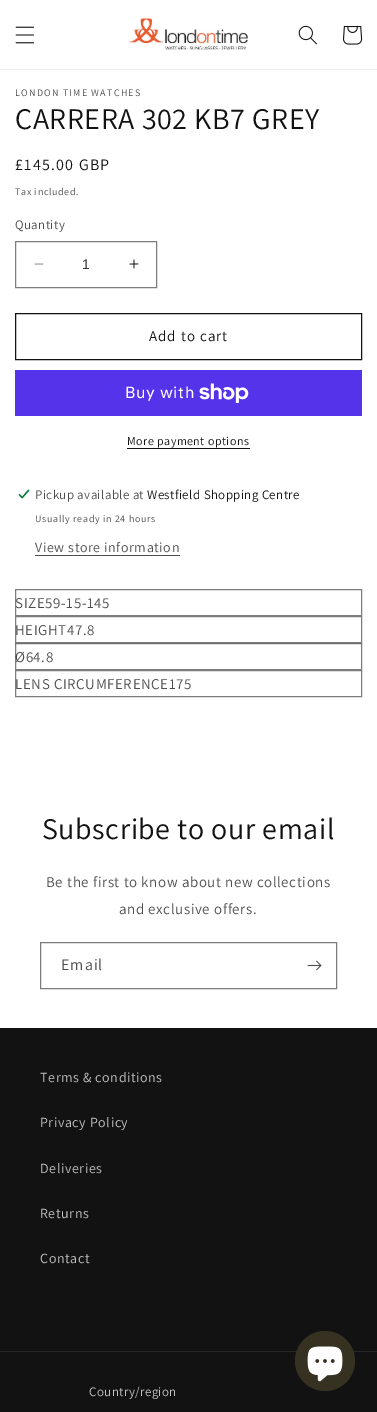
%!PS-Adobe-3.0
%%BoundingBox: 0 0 377 1412
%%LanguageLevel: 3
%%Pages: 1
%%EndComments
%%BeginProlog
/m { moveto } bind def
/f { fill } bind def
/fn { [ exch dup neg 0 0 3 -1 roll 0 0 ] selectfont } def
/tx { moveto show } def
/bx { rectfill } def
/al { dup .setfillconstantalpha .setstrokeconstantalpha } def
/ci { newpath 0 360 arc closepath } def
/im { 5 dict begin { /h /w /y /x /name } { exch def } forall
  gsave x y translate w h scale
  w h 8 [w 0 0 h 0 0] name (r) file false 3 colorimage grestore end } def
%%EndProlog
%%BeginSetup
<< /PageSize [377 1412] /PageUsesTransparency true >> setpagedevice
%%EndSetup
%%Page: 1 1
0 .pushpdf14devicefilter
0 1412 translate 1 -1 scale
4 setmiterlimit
1 setgray
0 0 377 1412 bx
0.925 setgray
0 69 377 1 bx
(image0.raw) 15 26 20 18 im
(image1.raw) 129 17 119 33 im
(image2.raw) 298 25 19 20 im
(image3.raw) 343 26 20 19 im
/Assistant-Regular 10 fn
0.302 setgray
15 96 m 1.25 0 (LONDON TIME WATCHES) ashow
/Assistant-Regular 30 fn
0.071 setgray
15 129 m 0.6 0 (CARRERA 302 KB7 GREY) ashow
/Assistant-Regular 16 fn
15 170 m 1.25 0 (£145.00 GBP) ashow
/Assistant-Regular 10 fn
0.302 setgray
15 195 m 0.7 0 (Tax included.) ashow
/Assistant-Regular 13 fn
15 229 m 0.4 0 (Quantity) ashow
(image4.raw) 34 263 10 2 im
(image5.raw) 129 259 10 10 im
0.49 setgray
15.5 241.5 141 46 rectstroke
/LiberationSans-Regular 14 fn
0.212 setgray
(1) 82 269 tx
0.071 setgray
15.5 313.5 346 46 rectstroke
/Assistant-Regular 15 fn
149 341 m 1 0 (Add to cart) ashow
0.329 0.2 0.922 setrgbcolor
15 370 347 46 bx
/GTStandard-Regular 16 fn
1 setgray
125 398 m 0.6 0 (Buy with) ashow
(image6.raw) 199 383 50 20 im
/Assistant-Regular 12 fn
0.071 setgray
127 445 m 0.5 0 (More payment options) ashow
127 448 123 1 bx
(image7.raw) 18 489 12 10 im
/Assistant-Regular 13 fn
0.302 setgray
35 499 m 0.4 0 (Pickup available at) ashow
0.071 setgray
147 499 m 0.4 0 (Westfield Shopping Centre) ashow
/Assistant-Regular 10 fn
0.302 setgray
35 522 m 0.7 0 (Usually ready in 24 hours) ashow
/Assistant-Regular 14 fn
35 552 m 0.6 0 (View store information) ashow
35 555 145 1 bx
/Assistant-Regular 15 fn
15 608 m 0.6 0 (SIZE59-15-145) ashow
0.55 al
0.071 setgray
15.5 589.5 346 26 rectstroke
1 al
0.49 setgray
15.5 616.5 346 26 rectstroke
0.302 setgray
15 635 m 0.6 0 (HEIGHT47.8) ashow
15 662 m 0.6 0 (Ø64.8) ashow
0.55 al
0.071 setgray
15.5 643.5 346 26 rectstroke
1 al
0.49 setgray
15.5 670.5 346 26 rectstroke
0.302 setgray
15 689 m 0.6 0 (LENS CIRCUMFERENCE175) ashow
/Assistant-Regular 30 fn
0.071 setgray
42 839 m 0.6 0 (Subscribe to our email) ashow
/Assistant-Regular 15 fn
0.302 setgray
46 887 m 0.6 0 (Be the first to know about new collections) ashow
119 914 m 0.6 0 (and exclusive offers.) ashow
0.49 setgray
40.5 942.5 296 46 rectstroke
/Assistant-Regular 16 fn
0.302 setgray
61 970 m 1 0 (Email) ashow
(image8.raw) 307 960 15 11 im
0.071 setgray
0 1028 377 384 bx
/Assistant-Regular 14 fn
0.769 setgray
40 1082 m 0.6 0 (Terms & conditions) ashow
40 1127 m 0.6 0 (Privacy Policy) ashow
40 1173 m 0.6 0 (Deliveries) ashow
40 1218 m 0.6 0 (Returns) ashow
40 1263 m 0.6 0 (Contact) ashow
0.145 setgray
0 1351 377 1 bx
/Assistant-Regular 13 fn
0.769 setgray
89 1396 m 0.4 0 (Country/region) ashow
0.212 0.192 0.125 setrgbcolor
325 1361 30 ci f
(image9.raw) 307 1346 36 36 im
.poppdf14devicefilter showpage
%%EOF
